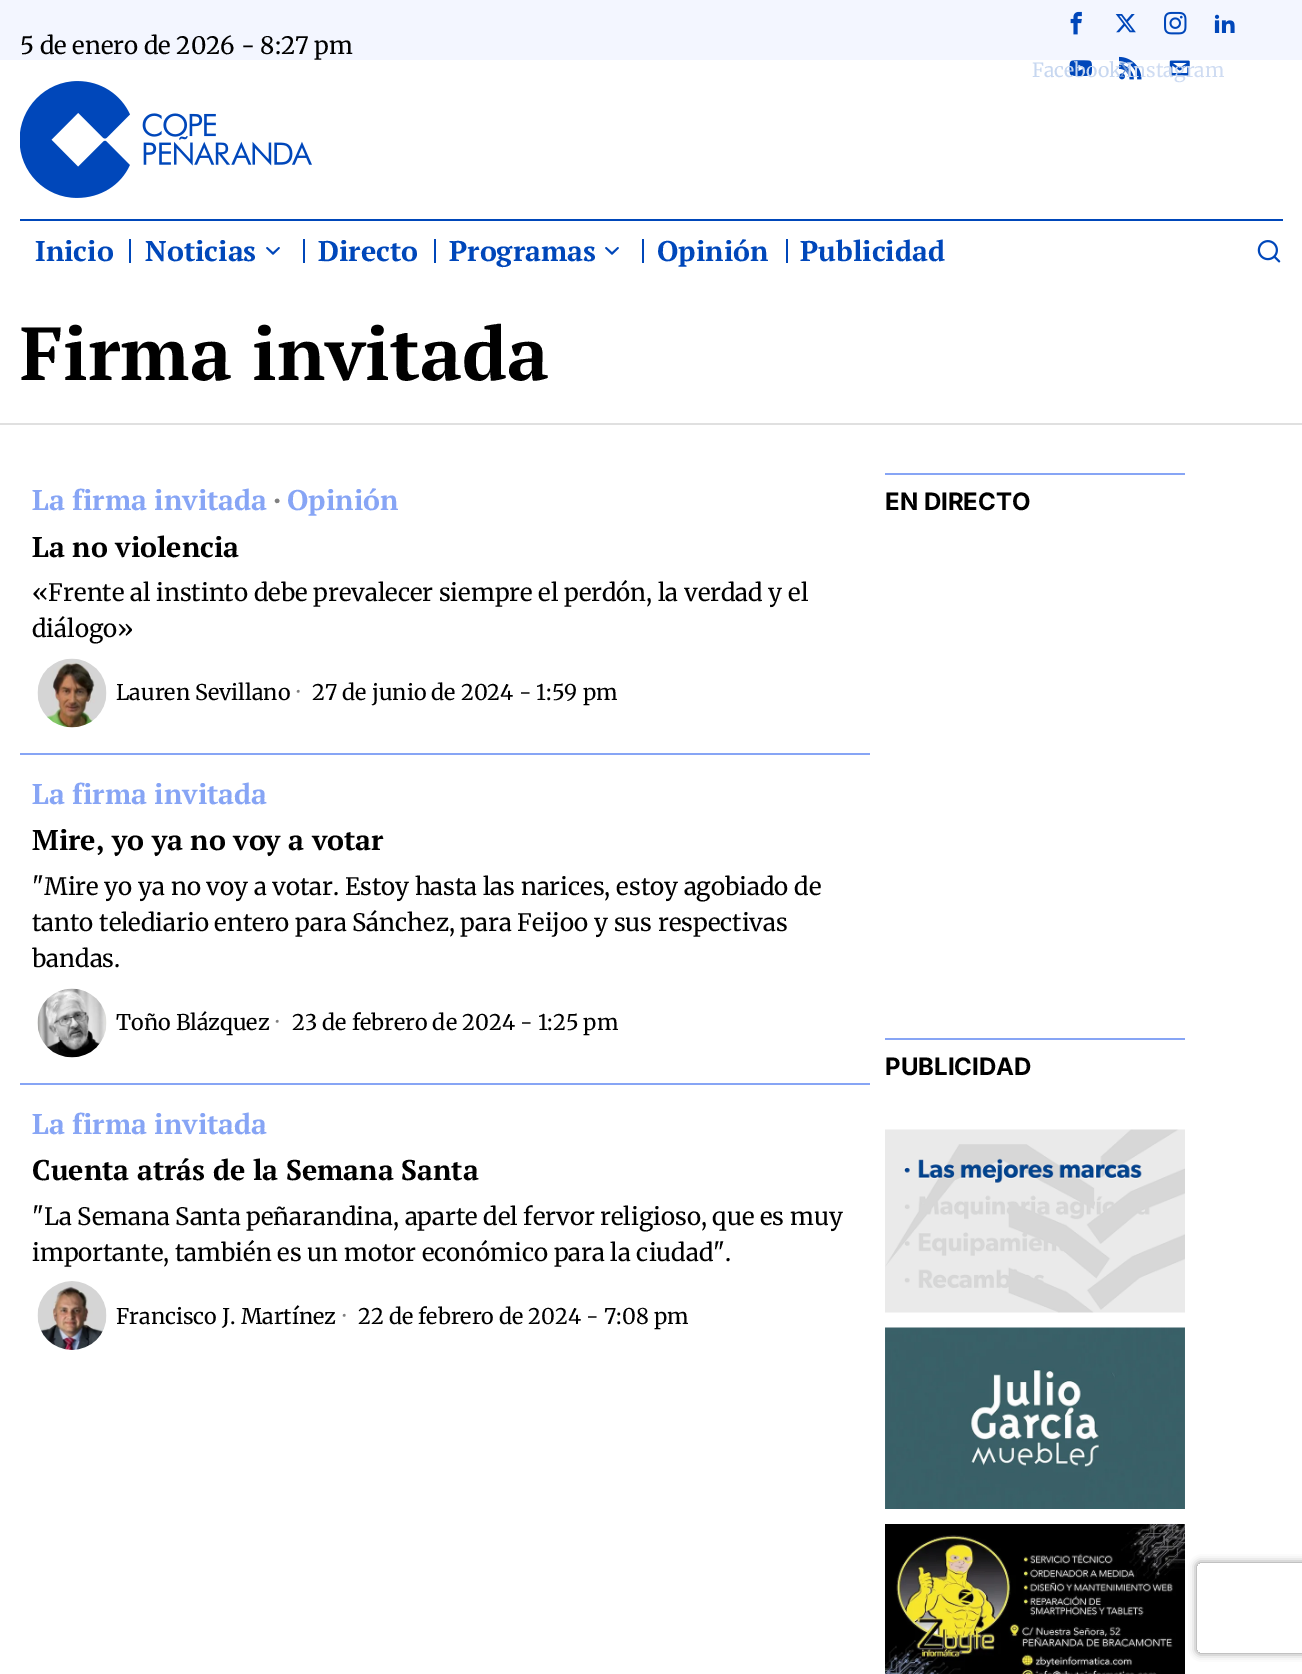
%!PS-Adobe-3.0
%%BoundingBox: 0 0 1302 1674
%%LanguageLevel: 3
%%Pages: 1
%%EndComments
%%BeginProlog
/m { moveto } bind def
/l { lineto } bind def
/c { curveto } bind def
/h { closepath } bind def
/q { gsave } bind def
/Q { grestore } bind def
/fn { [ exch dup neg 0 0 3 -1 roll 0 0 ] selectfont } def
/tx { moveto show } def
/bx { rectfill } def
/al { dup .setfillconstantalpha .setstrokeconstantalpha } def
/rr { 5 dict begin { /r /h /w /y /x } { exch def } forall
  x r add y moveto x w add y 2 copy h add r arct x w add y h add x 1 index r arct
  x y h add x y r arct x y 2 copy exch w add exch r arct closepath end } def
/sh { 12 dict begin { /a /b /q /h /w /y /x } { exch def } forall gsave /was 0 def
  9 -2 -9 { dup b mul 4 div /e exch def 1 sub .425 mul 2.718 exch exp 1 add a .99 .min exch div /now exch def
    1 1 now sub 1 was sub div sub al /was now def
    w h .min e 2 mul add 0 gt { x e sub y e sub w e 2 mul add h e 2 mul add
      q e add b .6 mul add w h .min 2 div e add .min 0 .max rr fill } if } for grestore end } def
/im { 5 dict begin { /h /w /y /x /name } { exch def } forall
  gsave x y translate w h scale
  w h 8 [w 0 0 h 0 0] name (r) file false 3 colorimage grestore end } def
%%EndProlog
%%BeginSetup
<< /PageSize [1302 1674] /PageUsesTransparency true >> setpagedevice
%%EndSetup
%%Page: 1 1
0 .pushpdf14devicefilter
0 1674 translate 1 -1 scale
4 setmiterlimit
1 setgray
0 0 1302 1674 bx
0.953 0.965 1 setrgbcolor
0 0 1302 60 bx
/Merriweather-Regular 24 fn
0 setgray
(5 de enero de 2026 - 8:27 pm) 20 54 tx
(image0.raw) 1214 14 21 19 im
(image1.raw) 1069 60 23 17 im
(image2.raw) 1119 56 23 24 im
(image3.raw) 1169 60 21 16 im
(image4.raw) 1070 11 12 24 im
/Merriweather-Regular 19.5 fn
0.78 0.843 0.941 setrgbcolor
(Facebook) 1032 77 tx
(image5.raw) 1115 14 21 19 im
0.384 0.557 0.831 setrgbcolor
(X) 1119 77 tx
(image6.raw) 1164 11 23 24 im
0.812 0.863 0.949 setrgbcolor
(Instagram) 1126 77 tx
(image7.raw) 20 81 292 117 im
0 0.278 0.729 setrgbcolor
20 219 1263 2 bx
/PTSerif-Bold 28.5 fn
(Inicio) 35 261 tx
129 239 2 24 bx
(Noticias) 145 261 tx
(image8.raw) 266 247 14 8 im
303 239 2 24 bx
(Directo) 318 261 tx
434 239 2 24 bx
(Programas) 449 261 tx
(image8.raw) 605 247 14 8 im
642 239 2 24 bx
(Opinión) 657 261 tx
786 239 2 24 bx
(Publicidad) 800 261 tx
(image9.raw) 1257 240 24 23 im
0.878 setgray
0 423 1302 2 bx
/PTSerif-Bold 75 fn
0 setgray
(Firma invitada) 20 380 tx
/PTSerif-Bold 28.5 fn
0.529 0.647 0.961 setrgbcolor
(La firma invitada) 32 510 tx
0.502 setgray
(·) 273 510 tx
0.529 0.647 0.961 setrgbcolor
(Opinión) 287 510 tx
0 setgray
(La no violencia) 32 557 tx
/Merriweather-Regular 24 fn
(«Frente al instinto debe prevalecer siempre el perdón, la verdad y el) 32 601 tx
(diálogo») 32 637 tx
(image10.raw) 37 658 70 70 im
/Merriweather-Regular 21.6 fn
(Lauren Sevillano) 116 700 tx
0.502 setgray
(·) 297 700 tx
0 setgray
(27 de junio de 2024 - 1:59 pm) 312 700 tx
0.529 0.647 0.961 setrgbcolor
20 753 850 2 bx
/PTSerif-Bold 28.5 fn
(La firma invitada) 32 804 tx
0 setgray
(Mire, yo ya no voy a votar) 32 850 tx
/Merriweather-Regular 24 fn
("Mire yo ya no voy a votar. Estoy hasta las narices, estoy agobiado de) 32 895 tx
(tanto telediario entero para Sánchez, para Feijoo y sus respectivas) 32 931 tx
(bandas.) 32 967 tx
(image11.raw) 37 988 70 70 im
/Merriweather-Regular 21.6 fn
(Toño Blázquez) 116 1030 tx
0.502 setgray
(·) 276 1030 tx
0 setgray
(23 de febrero de 2024 - 1:25 pm) 292 1030 tx
0.529 0.647 0.961 setrgbcolor
20 1083 850 2 bx
/PTSerif-Bold 28.5 fn
(La firma invitada) 32 1134 tx
0 setgray
(Cuenta atrás de la Semana Santa) 32 1180 tx
/Merriweather-Regular 24 fn
("La Semana Santa peñarandina, aparte del fervor religioso, que es muy) 32 1225 tx
(importante, también es un motor económico para la ciudad".) 32 1261 tx
(image12.raw) 37 1281 70 69 im
/Merriweather-Regular 21.6 fn
(Francisco J. Martínez) 116 1324 tx
0.502 setgray
(·) 343 1324 tx
0 setgray
(22 de febrero de 2024 - 7:08 pm) 358 1324 tx
0.529 0.647 0.961 setrgbcolor
885 473 300 2 bx
/Inter-Bold 24 fn
0 setgray
(EN DIRECTO) 885 510 tx
0.529 0.647 0.961 setrgbcolor
885 1038 300 2 bx
0 setgray
(PUBLICIDAD) 885 1075 tx
(image13.raw) 885 1129 300 184 im
(image14.raw) 885 1327 300 182 im
(image15.raw) 885 1524 300 150 im
q
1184 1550 m 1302 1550 l 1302 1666 l 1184 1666 l h 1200 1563 m 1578 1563 l 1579.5 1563 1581 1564.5 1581 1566 c 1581 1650 l 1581 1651.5 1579.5 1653 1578 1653 c 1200 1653 l 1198.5 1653 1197 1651.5 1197 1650 c 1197 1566 l 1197 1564.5 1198.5 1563 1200 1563 c h eoclip newpath
0.502 setgray
1197 1563 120 90 3 4 1 sh
Q
.poppdf14devicefilter showpage
%%EOF
